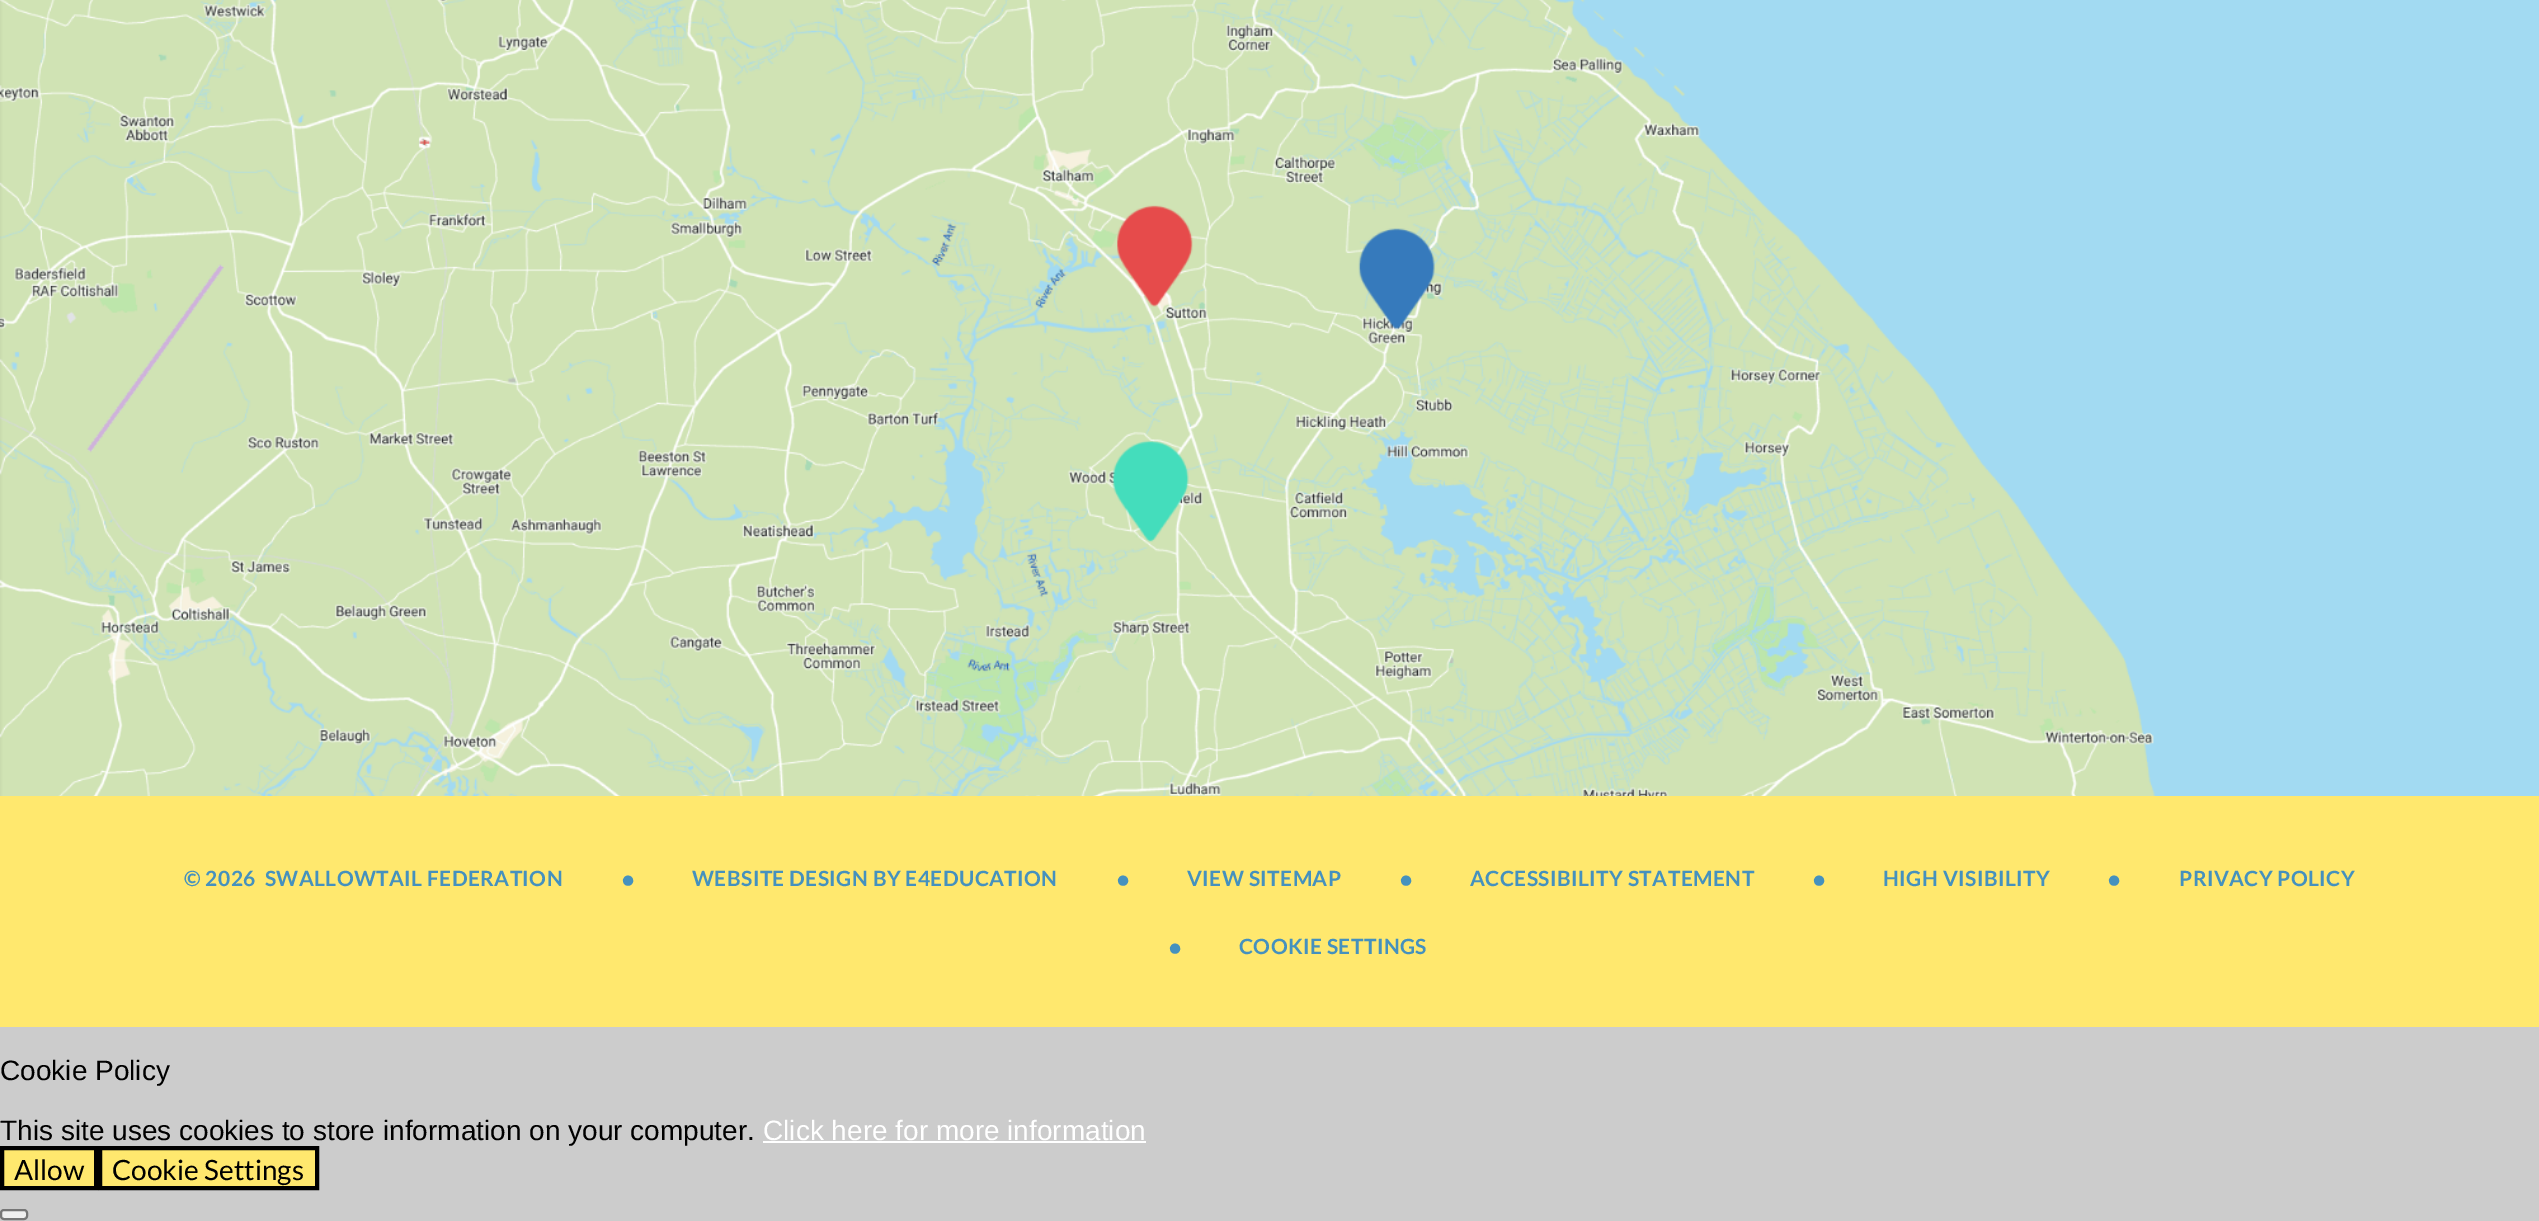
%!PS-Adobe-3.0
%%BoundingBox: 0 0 2539 1221
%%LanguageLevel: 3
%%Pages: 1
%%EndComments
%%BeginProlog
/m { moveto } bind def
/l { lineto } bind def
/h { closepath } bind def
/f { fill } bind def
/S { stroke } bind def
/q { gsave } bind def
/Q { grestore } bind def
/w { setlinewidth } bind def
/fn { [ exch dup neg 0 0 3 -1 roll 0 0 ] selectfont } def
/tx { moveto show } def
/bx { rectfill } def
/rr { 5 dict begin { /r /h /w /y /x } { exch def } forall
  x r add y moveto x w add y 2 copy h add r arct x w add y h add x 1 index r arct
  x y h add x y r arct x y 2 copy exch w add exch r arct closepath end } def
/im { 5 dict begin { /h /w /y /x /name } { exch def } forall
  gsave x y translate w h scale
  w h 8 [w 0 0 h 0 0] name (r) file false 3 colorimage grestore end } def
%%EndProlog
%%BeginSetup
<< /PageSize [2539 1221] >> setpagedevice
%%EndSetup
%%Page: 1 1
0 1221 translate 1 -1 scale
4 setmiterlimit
0.8 setgray
0 0 2539 1221 bx
(image0.raw) 0 0 2539 796 im
1 0.91 0.431 setrgbcolor
0 796 2539 231 bx
/Lato-Bold 21 fn
0.271 0.569 0.745 setrgbcolor
184 886 m 0.4 0 (© 2026  SWALLOWTAIL FEDERATION) ashow
/Lato-Regular 28 fn
(•) 620 889 tx
/Lato-Bold 21 fn
692 886 m 0.4 0 (WEBSITE DESIGN BY E4EDUCATION) ashow
/Lato-Regular 28 fn
(•) 1115 889 tx
/Lato-Bold 21 fn
1187 886 m 0.4 0 (VIEW SITEMAP) ashow
/Lato-Regular 28 fn
(•) 1398 889 tx
/Lato-Bold 21 fn
1470 886 m 0.4 0 (ACCESSIBILITY STATEMENT) ashow
/Lato-Regular 28 fn
(•) 1811 889 tx
/Lato-Bold 21 fn
1883 886 m 0.4 0 (HIGH VISIBILITY) ashow
/Lato-Regular 28 fn
(•) 2106 889 tx
/Lato-Bold 21 fn
2179 886 m 0.4 0 (PRIVACY POLICY) ashow
/Lato-Regular 28 fn
(•) 1167 957 tx
/Lato-Bold 21 fn
1239 954 m 0.4 0 (COOKIE SETTINGS) ashow
/LiberationSans-Regular 28 fn
0 setgray
(Cookie Policy) 0 1080 tx
(This site uses cookies to store information on your computer.) 0 1140 tx
1 setgray
(Click here for more information) 763 1140 tx
763 1141 383 2 bx
1 0.91 0.431 setrgbcolor
2 1148 m 96 1148 l 96 1188 l 2 1188 l h q f Q
0 setgray
4 w
S
/Lato-Regular 28 fn
(Allow) 14 1180 tx
1 0.91 0.431 setrgbcolor
100 1148 m 317 1148 l 317 1188 l 100 1188 l h q f Q
0 setgray
S
(Cookie Settings) 112 1180 tx
0.937 setgray
1 1210 26 9 3 rr q f Q
0.463 setgray
2 w
S
showpage
%%EOF
